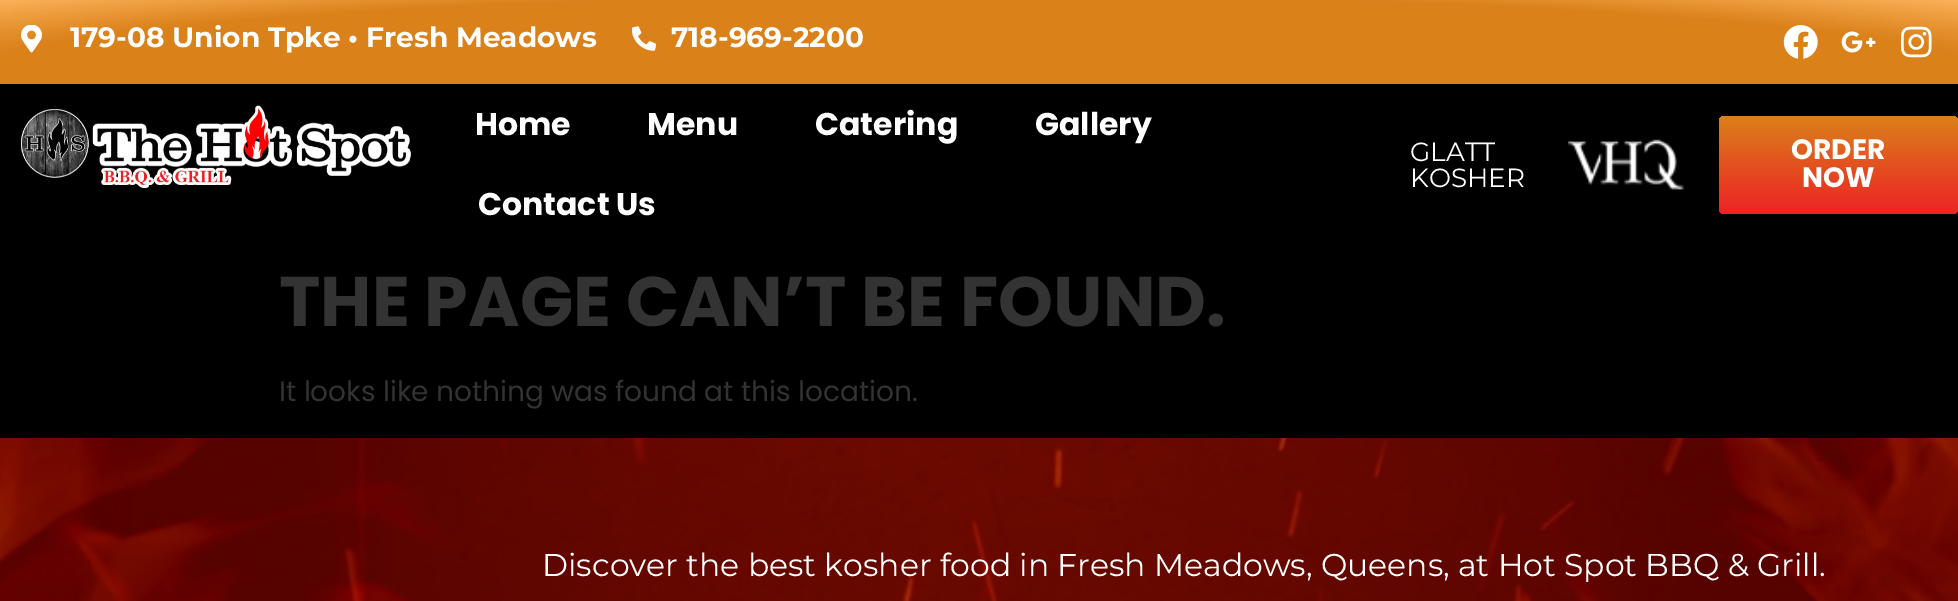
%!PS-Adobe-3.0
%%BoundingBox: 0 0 1958 601
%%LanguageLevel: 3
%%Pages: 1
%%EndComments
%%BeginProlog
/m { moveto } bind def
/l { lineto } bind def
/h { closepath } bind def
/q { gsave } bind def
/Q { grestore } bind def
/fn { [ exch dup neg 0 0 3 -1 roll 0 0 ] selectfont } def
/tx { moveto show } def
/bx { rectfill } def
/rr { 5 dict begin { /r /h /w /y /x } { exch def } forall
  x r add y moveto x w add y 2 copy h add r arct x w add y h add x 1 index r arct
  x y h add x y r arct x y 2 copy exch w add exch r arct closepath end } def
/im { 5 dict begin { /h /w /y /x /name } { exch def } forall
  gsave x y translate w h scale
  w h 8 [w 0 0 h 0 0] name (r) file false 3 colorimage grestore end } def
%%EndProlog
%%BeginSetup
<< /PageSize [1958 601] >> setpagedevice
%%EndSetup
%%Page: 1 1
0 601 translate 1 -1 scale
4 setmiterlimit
0 setgray
0 0 1958 601 bx
q 0 0 m 1958 0 l 1958 84 l 0 84 l h clip newpath 979 84 translate 1385 119 scale
<< /ShadingType 3 /ColorSpace /DeviceRGB /Coords [0 0 0 0 0 1] /Extend [true true] /Function << /FunctionType 3 /Domain [0 1] /Functions [<< /FunctionType 2 /Domain [0 1] /C0 [0.855 0.506 0.102] /C1 [0.855 0.506 0.102] /N 1 >> << /FunctionType 2 /Domain [0 1] /C0 [0.855 0.506 0.102] /C1 [0.988 0.694 0.349] /N 1 >>] /Bounds [0.75] /Encode [0 1 0 1] >> >> shfill Q
(image0.raw) 21 25 21 28 im
/Montserrat-Bold 28 fn
1 setgray
(179-08 Union Tpke • Fresh Meadows) 70 47 tx
(image1.raw) 632 26 24 25 im
(718-969-2200) 671 47 tx
(image2.raw) 1783 25 35 34 im
(image3.raw) 1841 31 35 22 im
(image4.raw) 1900 26 32 32 im
(image5.raw) 21 105 390 83 im
/Poppins-Bold 31.5 fn
(Home) 475 135 tx
(Menu) 647 135 tx
(Catering) 815 135 tx
(Gallery) 1035 135 tx
(Contact Us) 478 215 tx
/Montserrat-Regular 26.25 fn
(GLATT) 1410 161 tx
(KOSHER) 1410 187 tx
(image6.raw) 1568 139 116 51 im
q 1719 116 239 98 5 rr clip newpath
<< /ShadingType 2 /ColorSpace /DeviceRGB /Coords [1838 116 1838 214] /Extend [true true] /Function << /FunctionType 2 /Domain [0 1] /C0 [0.855 0.506 0.102] /C1 [0.929 0.133 0.145] /N 1 >> >> shfill Q
/Poppins-Bold 28 fn
(ORDER) 1791 159 tx
(NOW) 1802 187 tx
/Poppins-Bold 70 fn
0.2 setgray
(THE PAGE CAN’T BE FOUND.) 279 326 tx
/Poppins-Regular 28 fn
(It looks like nothing was found at this location.) 279 401 tx
(image7.raw) 0 438 1958 163 im
/Montserrat-Regular 31.5 fn
1 setgray
(Discover the best kosher food in Fresh Meadows, Queens, at Hot Spot BBQ & Grill.) 542 576 tx
showpage
%%EOF
